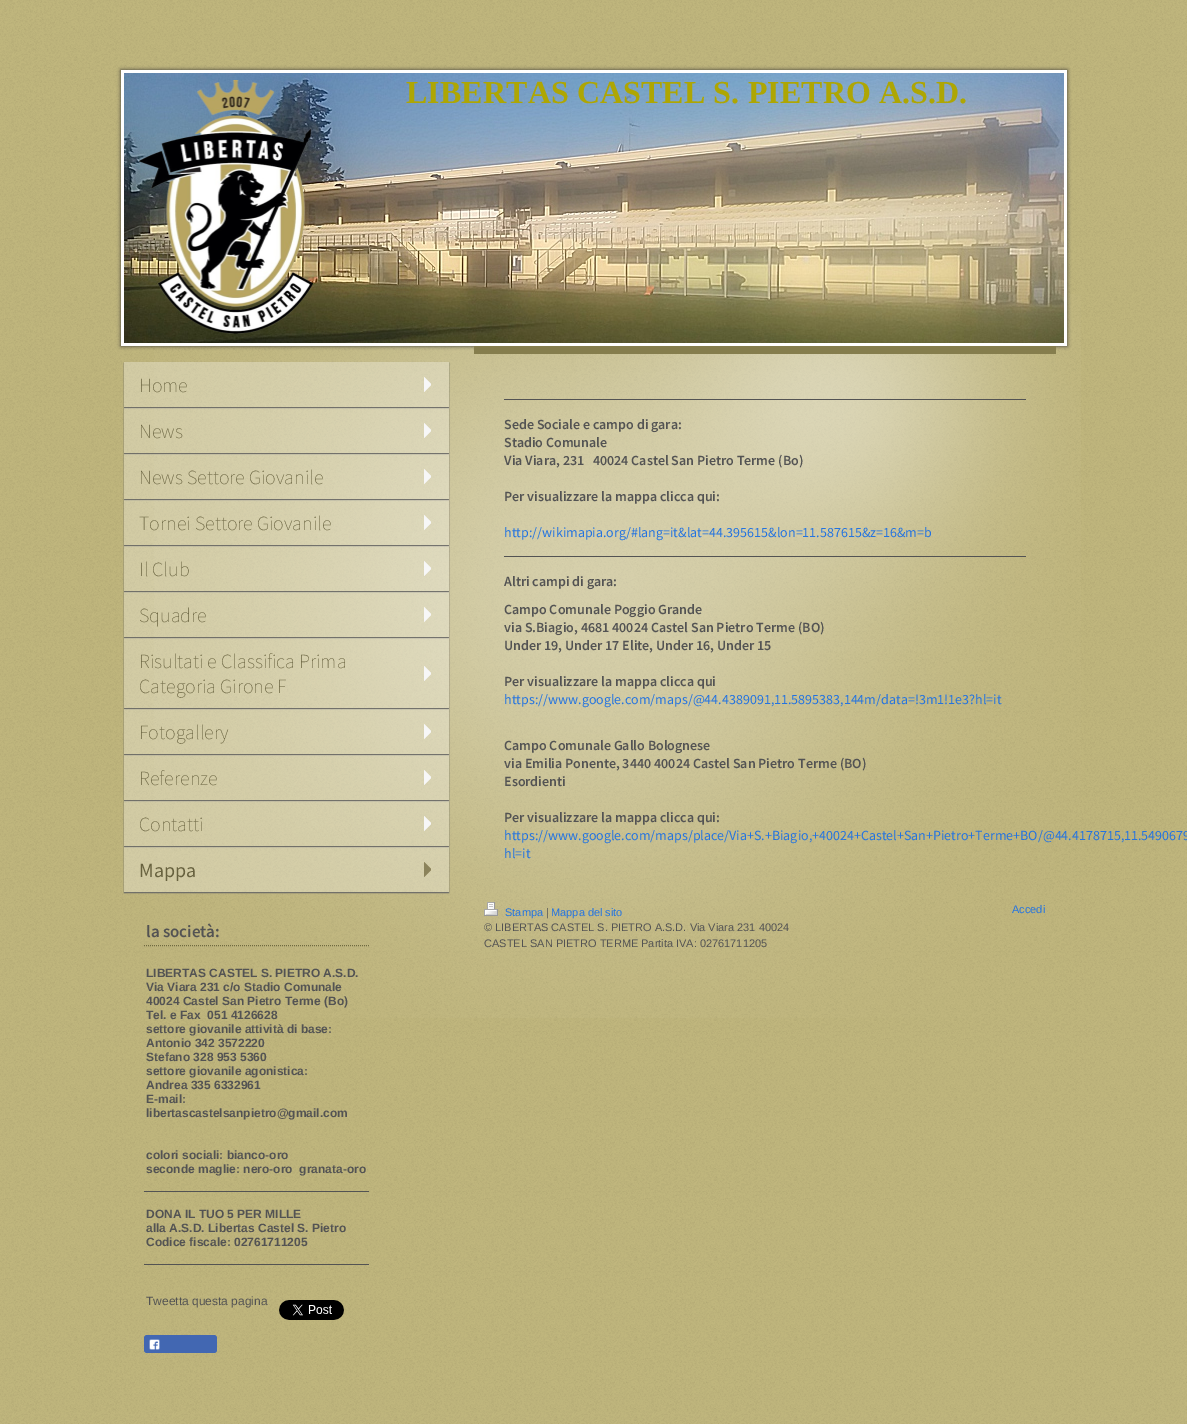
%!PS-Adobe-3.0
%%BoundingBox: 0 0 1187 1424
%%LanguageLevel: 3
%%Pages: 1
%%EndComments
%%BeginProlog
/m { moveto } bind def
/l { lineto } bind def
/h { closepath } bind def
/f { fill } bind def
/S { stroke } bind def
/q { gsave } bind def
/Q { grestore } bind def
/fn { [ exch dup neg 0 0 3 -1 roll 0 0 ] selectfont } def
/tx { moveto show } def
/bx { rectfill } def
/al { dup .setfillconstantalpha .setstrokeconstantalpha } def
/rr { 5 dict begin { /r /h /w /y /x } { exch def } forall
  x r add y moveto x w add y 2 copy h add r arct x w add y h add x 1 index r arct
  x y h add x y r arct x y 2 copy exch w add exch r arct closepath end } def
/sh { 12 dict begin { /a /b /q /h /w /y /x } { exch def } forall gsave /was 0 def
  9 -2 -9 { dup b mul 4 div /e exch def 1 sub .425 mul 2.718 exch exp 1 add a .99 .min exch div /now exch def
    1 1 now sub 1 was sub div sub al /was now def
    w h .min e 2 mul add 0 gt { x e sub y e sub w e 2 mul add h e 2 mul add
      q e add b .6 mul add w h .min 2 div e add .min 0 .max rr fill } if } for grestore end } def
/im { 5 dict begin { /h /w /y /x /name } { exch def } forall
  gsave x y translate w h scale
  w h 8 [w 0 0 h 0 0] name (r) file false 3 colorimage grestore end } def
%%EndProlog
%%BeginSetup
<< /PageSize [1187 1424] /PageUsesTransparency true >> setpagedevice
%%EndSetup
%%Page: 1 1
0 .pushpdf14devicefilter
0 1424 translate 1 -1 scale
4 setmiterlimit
0.753 0.714 0.49 setrgbcolor
0 0 1187 1424 bx
(image0.raw) 0 0 1187 1424 im
(image1.raw) 154 294 927 724 im
0.2 setgray
121 70 946 276 0 2 1 sh
1 setgray
121 70 946 276 bx
(image2.raw) 124 73 940 270 im
(image3.raw) 139 80 175 254 im
/LiberationSerif-Bold 32 fn
0.682 0.651 0.012 setrgbcolor
406 103 m 0.1 0 (LIBERTAS CASTEL S. PIETRO A.S.D.) ashow
q
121 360 m 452 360 l 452 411 l 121 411 l h 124 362 m 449 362 l 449 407 l 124 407 l h eoclip newpath
0.4 setgray
124 363 325 45 0 0.5 1 sh
Q
0.3 al
1 setgray
124 362 325 45 bx
1 al
(image4.raw) 424 377 7 15 im
/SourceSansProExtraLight-ExtraLight 20 fn
0.408 0.384 0.247 setrgbcolor
(Home) 139 392 tx
q
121 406 m 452 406 l 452 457 l 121 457 l h 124 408 m 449 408 l 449 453 l 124 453 l h eoclip newpath
0.4 setgray
124 409 325 45 0 0.5 1 sh
Q
0.3 al
1 setgray
124 408 325 45 bx
1 al
(image5.raw) 424 423 7 15 im
0.408 0.384 0.247 setrgbcolor
(News) 139 438 tx
q
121 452 m 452 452 l 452 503 l 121 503 l h 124 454 m 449 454 l 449 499 l 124 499 l h eoclip newpath
0.4 setgray
124 455 325 45 0 0.5 1 sh
Q
0.3 al
1 setgray
124 454 325 45 bx
1 al
(image6.raw) 424 469 7 15 im
0.408 0.384 0.247 setrgbcolor
(News Settore Giovanile) 139 484 tx
q
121 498 m 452 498 l 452 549 l 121 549 l h 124 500 m 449 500 l 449 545 l 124 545 l h eoclip newpath
0.4 setgray
124 501 325 45 0 0.5 1 sh
Q
0.3 al
1 setgray
124 500 325 45 bx
1 al
(image7.raw) 424 515 7 15 im
0.408 0.384 0.247 setrgbcolor
(Tornei Settore Giovanile) 139 530 tx
q
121 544 m 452 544 l 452 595 l 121 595 l h 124 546 m 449 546 l 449 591 l 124 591 l h eoclip newpath
0.4 setgray
124 547 325 45 0 0.5 1 sh
Q
0.3 al
1 setgray
124 546 325 45 bx
1 al
(image8.raw) 424 561 7 15 im
0.408 0.384 0.247 setrgbcolor
(Il Club) 139 576 tx
q
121 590 m 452 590 l 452 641 l 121 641 l h 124 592 m 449 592 l 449 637 l 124 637 l h eoclip newpath
0.4 setgray
124 593 325 45 0 0.5 1 sh
Q
0.3 al
1 setgray
124 592 325 45 bx
1 al
(image9.raw) 424 607 7 15 im
0.408 0.384 0.247 setrgbcolor
(Squadre) 139 622 tx
q
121 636 m 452 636 l 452 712 l 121 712 l h 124 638 m 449 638 l 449 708 l 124 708 l h eoclip newpath
0.4 setgray
124 639 325 70 0 0.5 1 sh
Q
0.3 al
1 setgray
124 638 325 70 bx
1 al
(image10.raw) 424 666 7 15 im
0.408 0.384 0.247 setrgbcolor
(Risultati e Classifica Prima) 139 668 tx
(Categoria Girone F) 139 693 tx
q
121 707 m 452 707 l 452 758 l 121 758 l h 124 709 m 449 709 l 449 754 l 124 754 l h eoclip newpath
0.4 setgray
124 710 325 45 0 0.5 1 sh
Q
0.3 al
1 setgray
124 709 325 45 bx
1 al
(image11.raw) 424 724 7 15 im
0.408 0.384 0.247 setrgbcolor
(Fotogallery) 139 739 tx
q
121 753 m 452 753 l 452 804 l 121 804 l h 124 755 m 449 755 l 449 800 l 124 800 l h eoclip newpath
0.4 setgray
124 756 325 45 0 0.5 1 sh
Q
0.3 al
1 setgray
124 755 325 45 bx
1 al
(image12.raw) 424 770 7 15 im
0.408 0.384 0.247 setrgbcolor
(Referenze) 139 785 tx
q
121 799 m 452 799 l 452 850 l 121 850 l h 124 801 m 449 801 l 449 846 l 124 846 l h eoclip newpath
0.4 setgray
124 802 325 45 0 0.5 1 sh
Q
0.3 al
1 setgray
124 801 325 45 bx
1 al
(image13.raw) 424 816 7 15 im
0.408 0.384 0.247 setrgbcolor
(Contatti) 139 831 tx
q
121 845 m 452 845 l 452 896 l 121 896 l h 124 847 m 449 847 l 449 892 l 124 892 l h eoclip newpath
0.4 setgray
124 848 325 45 0 0.5 1 sh
Q
0.3 al
1 setgray
124 847 325 45 bx
1 al
(image14.raw) 424 862 7 15 im
/SourceSansPro-Regular 20 fn
0.408 0.384 0.247 setrgbcolor
(Mappa) 139 877 tx
0.439 0.416 0.255 setrgbcolor
[1 1] 0 setdash
144 945.5 m 369 945.5 l S
/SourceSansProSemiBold-SemiBold 17 fn
0.325 setgray
(la società:) 146 937 tx
/LiberationSans-Bold 12 fn
(LIBERTAS CASTEL S. PIETRO A.S.D.) 146 977 tx
(Via Viara 231 c/o Stadio Comunale) 146 991 tx
(40024 Castel San Pietro Terme \(Bo\)) 146 1005 tx
(Tel. e Fax  051 4126628) 146 1019 tx
(settore giovanile attività di base:) 146 1033 tx
(Antonio 342 3572220) 146 1047 tx
(Stefano 328 953 5360) 146 1061 tx
(settore giovanile agonistica:) 146 1075 tx
(Andrea 335 6332961) 146 1089 tx
(E-mail:) 146 1103 tx
(libertascastelsanpietro@gmail.com) 146 1117 tx
(colori sociali: bianco-oro) 146 1159 tx
(seconde maglie: nero-oro  granata-oro) 146 1173 tx
144 1191 225 1 bx
(DONA IL TUO 5 PER MILLE) 146 1218 tx
(alla A.S.D. Libertas Castel S. Pietro) 146 1232 tx
(Codice fiscale: 02761711205) 146 1246 tx
144 1264 225 1 bx
/LiberationSans-Regular 12 fn
(Tweetta questa pagina) 146 1305 tx
(image15.raw) 279 1300 65 20 im
0.259 0.404 0.698 setrgbcolor
144 1335 73 18 3 rr f
(image16.raw) 149 1339 11 11 im
0.522 0.49 0.302 setrgbcolor
474 346 582 8 bx
0.325 setgray
504 399 522 1 bx
/SourceSansProSemiBold-SemiBold 14 fn
(Sede Sociale e campo di gara:) 504 429 tx
(Stadio Comunale) 504 447 tx
(Via Viara, 231   40024 Castel San Pietro Terme \(Bo\)) 504 465 tx
(Per visualizzare la mappa clicca qui:) 504 501 tx
/SourceSansPro-Regular 14 fn
0.137 0.451 0.878 setrgbcolor
(http://wikimapia.org/#lang=it&lat=44.395615&lon=11.587615&z=16&m=b) 504 537 tx
0.325 setgray
504 556 522 1 bx
/SourceSansProSemiBold-SemiBold 14 fn
(Altri campi di gara:) 504 586 tx
(Campo Comunale Poggio Grande) 504 614 tx
(via S.Biagio, 4681 40024 Castel San Pietro Terme \(BO\)) 504 632 tx
(Under 19, Under 17 Elite, Under 16, Under 15) 504 650 tx
(Per visualizzare la mappa clicca qui) 504 686 tx
/SourceSansPro-Regular 14 fn
0.137 0.451 0.878 setrgbcolor
(https://www.google.com/maps/@44.4389091,11.5895383,144m/data=!3m1!1e3?hl=it) 504 704 tx
/SourceSansProSemiBold-SemiBold 14 fn
0.325 setgray
(Campo Comunale Gallo Bolognese) 504 750 tx
(via Emilia Ponente, 3440 40024 Castel San Pietro Terme \(BO\)) 504 768 tx
(Esordienti) 504 786 tx
(Per visualizzare la mappa clicca qui:) 504 822 tx
/SourceSansPro-Regular 14 fn
0.137 0.451 0.878 setrgbcolor
(https://www.google.com/maps/place/Via+S.+Biagio,+40024+Castel+San+Pietro+Terme+BO/@44.4178715,11.5490679) 504 840 tx
(hl=it) 504 858 tx
(image17.raw) 484 902 14 14 im
/LiberationSans-Regular 11 fn
(Stampa) 505 916 tx
0.325 setgray
(|) 546 916 tx
0.137 0.451 0.878 setrgbcolor
(Mappa del sito) 551 916 tx
q
484 902 562 49 rectclip
0.325 setgray
(© LIBERTAS CASTEL S. PIETRO A.S.D. Via Viara 231 40024) 484 931 tx
Q
0.325 setgray
(CASTEL SAN PIETRO TERME Partita IVA: 02761711205) 484 947 tx
0.137 0.451 0.878 setrgbcolor
(Accedi) 1012 913 tx
.poppdf14devicefilter showpage
%%EOF
